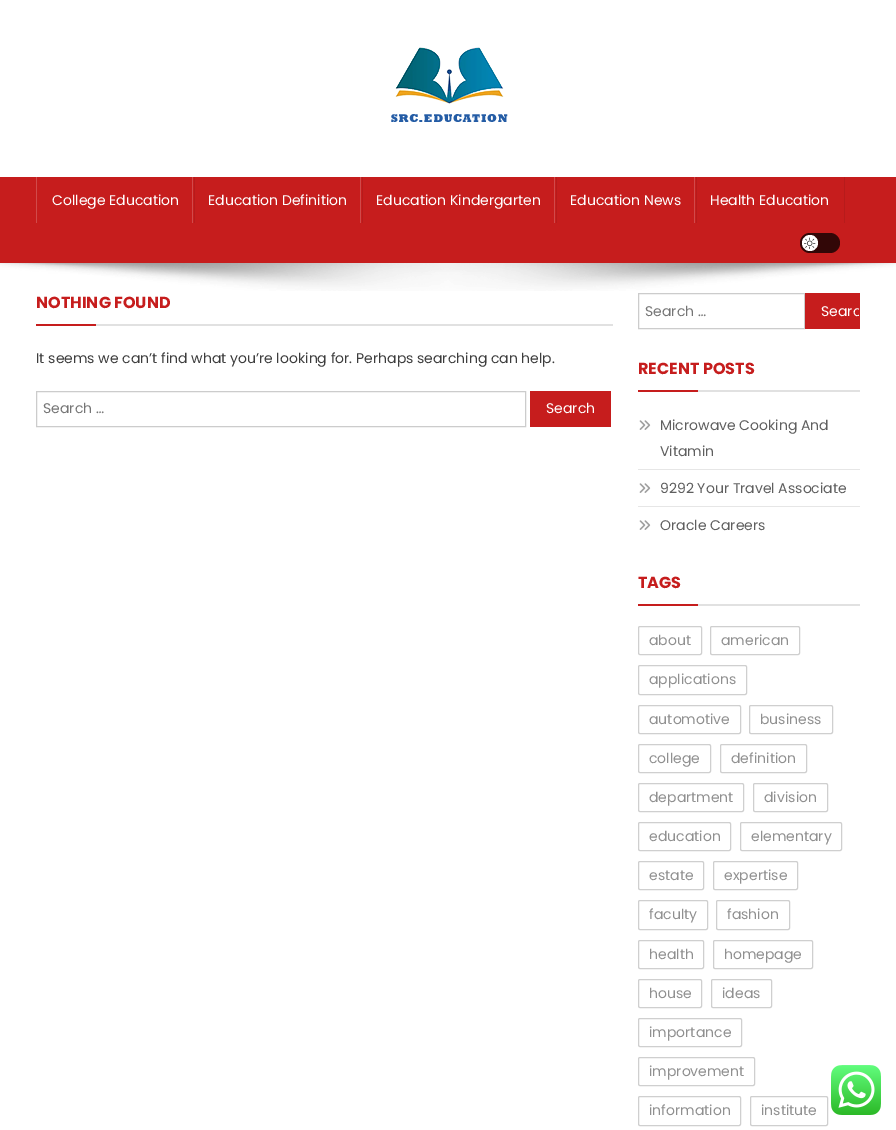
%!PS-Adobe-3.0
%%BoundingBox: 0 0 896 1130
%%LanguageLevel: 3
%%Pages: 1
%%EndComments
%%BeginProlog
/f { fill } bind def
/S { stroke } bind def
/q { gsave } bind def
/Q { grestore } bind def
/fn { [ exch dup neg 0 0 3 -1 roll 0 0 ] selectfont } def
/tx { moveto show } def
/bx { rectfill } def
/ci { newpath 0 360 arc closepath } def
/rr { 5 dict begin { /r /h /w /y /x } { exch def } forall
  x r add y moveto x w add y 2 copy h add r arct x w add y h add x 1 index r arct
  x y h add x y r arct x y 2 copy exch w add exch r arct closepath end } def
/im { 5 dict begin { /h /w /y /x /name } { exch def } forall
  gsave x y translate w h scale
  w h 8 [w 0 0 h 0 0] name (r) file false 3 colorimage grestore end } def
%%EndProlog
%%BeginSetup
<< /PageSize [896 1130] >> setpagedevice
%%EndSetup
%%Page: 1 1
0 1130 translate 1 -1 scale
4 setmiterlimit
1 setgray
0 0 896 1130 bx
(image0.raw) 391 47 117 75 im
0.776 0.114 0.114 setrgbcolor
0 177 896 86 bx
0.714 0.106 0.106 setrgbcolor
194 177 1 46 bx
0.82 0.29 0.29 setrgbcolor
36 177 1 46 bx
/Poppins-Regular 14 fn
1 setgray
(College Education) 52 205 tx
0.714 0.106 0.106 setrgbcolor
362 177 1 46 bx
0.82 0.29 0.29 setrgbcolor
192 177 1 46 bx
1 setgray
(Education Definition) 208 205 tx
0.714 0.106 0.106 setrgbcolor
556 177 1 46 bx
0.82 0.29 0.29 setrgbcolor
360 177 1 46 bx
1 setgray
(Education Kindergarten) 376 205 tx
0.714 0.106 0.106 setrgbcolor
696 177 1 46 bx
0.82 0.29 0.29 setrgbcolor
554 177 1 46 bx
1 setgray
(Education News) 570 205 tx
0.714 0.106 0.106 setrgbcolor
844 177 1 46 bx
0.82 0.29 0.29 setrgbcolor
694 177 1 46 bx
1 setgray
(Health Education) 710 205 tx
0.196 0.027 0.027 setrgbcolor
800 233 40 20 10 rr f
1 setgray
810 243 8 ci f
(image1.raw) 804 237 12 12 im
(image2.raw) 0 263 896 28 im
0.882 setgray
96 324 517 2 bx
/Poppins-Bold 16 fn
0.776 0.114 0.114 setrgbcolor
(NOTHING FOUND) 36 308 tx
36 324 60 2 bx
/Poppins-Regular 14 fn
0.239 setgray
(It seems we can’t find what you’re looking for. Perhaps searching can help.) 36 363 tx
0.8 setgray
36.5 391.5 489 35 rectstroke
0.459 setgray
(Search …) 43 413 tx
0.776 0.114 0.114 setrgbcolor
530 391 81 36 bx
1 setgray
(Search) 546 413 tx
0.8 setgray
638.5 293.5 166 35 rectstroke
0.459 setgray
(Search …) 645 316 tx
0.776 0.114 0.114 setrgbcolor
805 293 55 36 bx
q
806 294 53 34 rectclip
1 setgray
(Searc) 821 316 tx
Q
0.882 setgray
698 390 162 2 bx
/Poppins-Bold 16 fn
0.776 0.114 0.114 setrgbcolor
(RECENT POSTS) 638 374 tx
638 390 60 2 bx
0.902 setgray
638 469 222 1 bx
(image3.raw) 639 420 12 10 im
/Poppins-Regular 14 fn
0.373 setgray
(Microwave Cooking And) 660 430 tx
(Vitamin) 660 456 tx
0.902 setgray
638 506 222 1 bx
(image3.raw) 639 483 12 10 im
0.373 setgray
(9292 Your Travel Associate) 660 493 tx
(image3.raw) 639 520 12 10 im
(Oracle Careers) 660 530 tx
0.882 setgray
698 604 162 2 bx
/Poppins-Bold 16 fn
0.776 0.114 0.114 setrgbcolor
(TAGS) 638 588 tx
638 604 60 2 bx
0.812 setgray
638.5 626.5 63 28 1.5 rr S
/Poppins-Regular 14 fn
0.565 setgray
(about) 649 645 tx
0.812 setgray
710.5 626.5 89 28 1.5 rr S
0.565 setgray
(american) 721 645 tx
0.812 setgray
638.5 665.5 108 29 1.5 rr S
0.565 setgray
(applications) 649 684 tx
0.812 setgray
638.5 705.5 102 28 1.5 rr S
0.565 setgray
(automotive) 649 724 tx
0.812 setgray
749.5 705.5 83 28 1.5 rr S
0.565 setgray
(business) 760 724 tx
0.812 setgray
638.5 744.5 72 28 1.5 rr S
0.565 setgray
(college) 649 763 tx
0.812 setgray
720.5 744.5 86 28 1.5 rr S
0.565 setgray
(definition) 731 763 tx
0.812 setgray
638.5 783.5 105 28 1.5 rr S
0.565 setgray
(department) 649 802 tx
0.812 setgray
753.5 783.5 74 28 1.5 rr S
0.565 setgray
(division) 764 802 tx
0.812 setgray
638.5 822.5 92 28 1.5 rr S
0.565 setgray
(education) 649 841 tx
0.812 setgray
740.5 822.5 101 28 1.5 rr S
0.565 setgray
(elementary) 751 841 tx
0.812 setgray
638.5 861.5 65 28 1.5 rr S
0.565 setgray
(estate) 649 880 tx
0.812 setgray
713.5 861.5 84 28 1.5 rr S
0.565 setgray
(expertise) 724 880 tx
0.812 setgray
638.5 900.5 69 29 1.5 rr S
0.565 setgray
(faculty) 649 919 tx
0.812 setgray
716.5 900.5 73 29 1.5 rr S
0.565 setgray
(fashion) 727 919 tx
0.812 setgray
638.5 940.5 65 28 1.5 rr S
0.565 setgray
(health) 649 959 tx
0.812 setgray
713.5 940.5 99 28 1.5 rr S
0.565 setgray
(homepage) 724 959 tx
0.812 setgray
638.5 979.5 63 28 1.5 rr S
0.565 setgray
(house) 649 998 tx
0.812 setgray
711.5 979.5 60 28 1.5 rr S
0.565 setgray
(ideas) 722 998 tx
0.812 setgray
638.5 1018.5 103 28 1.5 rr S
0.565 setgray
(importance) 649 1037 tx
0.812 setgray
638.5 1057.5 116 28 1.5 rr S
0.565 setgray
(improvement) 649 1076 tx
0.812 setgray
638.5 1096.5 102 29 1.5 rr S
0.565 setgray
(information) 649 1115 tx
0.812 setgray
750.5 1096.5 77 29 1.5 rr S
0.565 setgray
(institute) 761 1115 tx
(image4.raw) 831 1065 50 50 im
showpage
%%EOF
